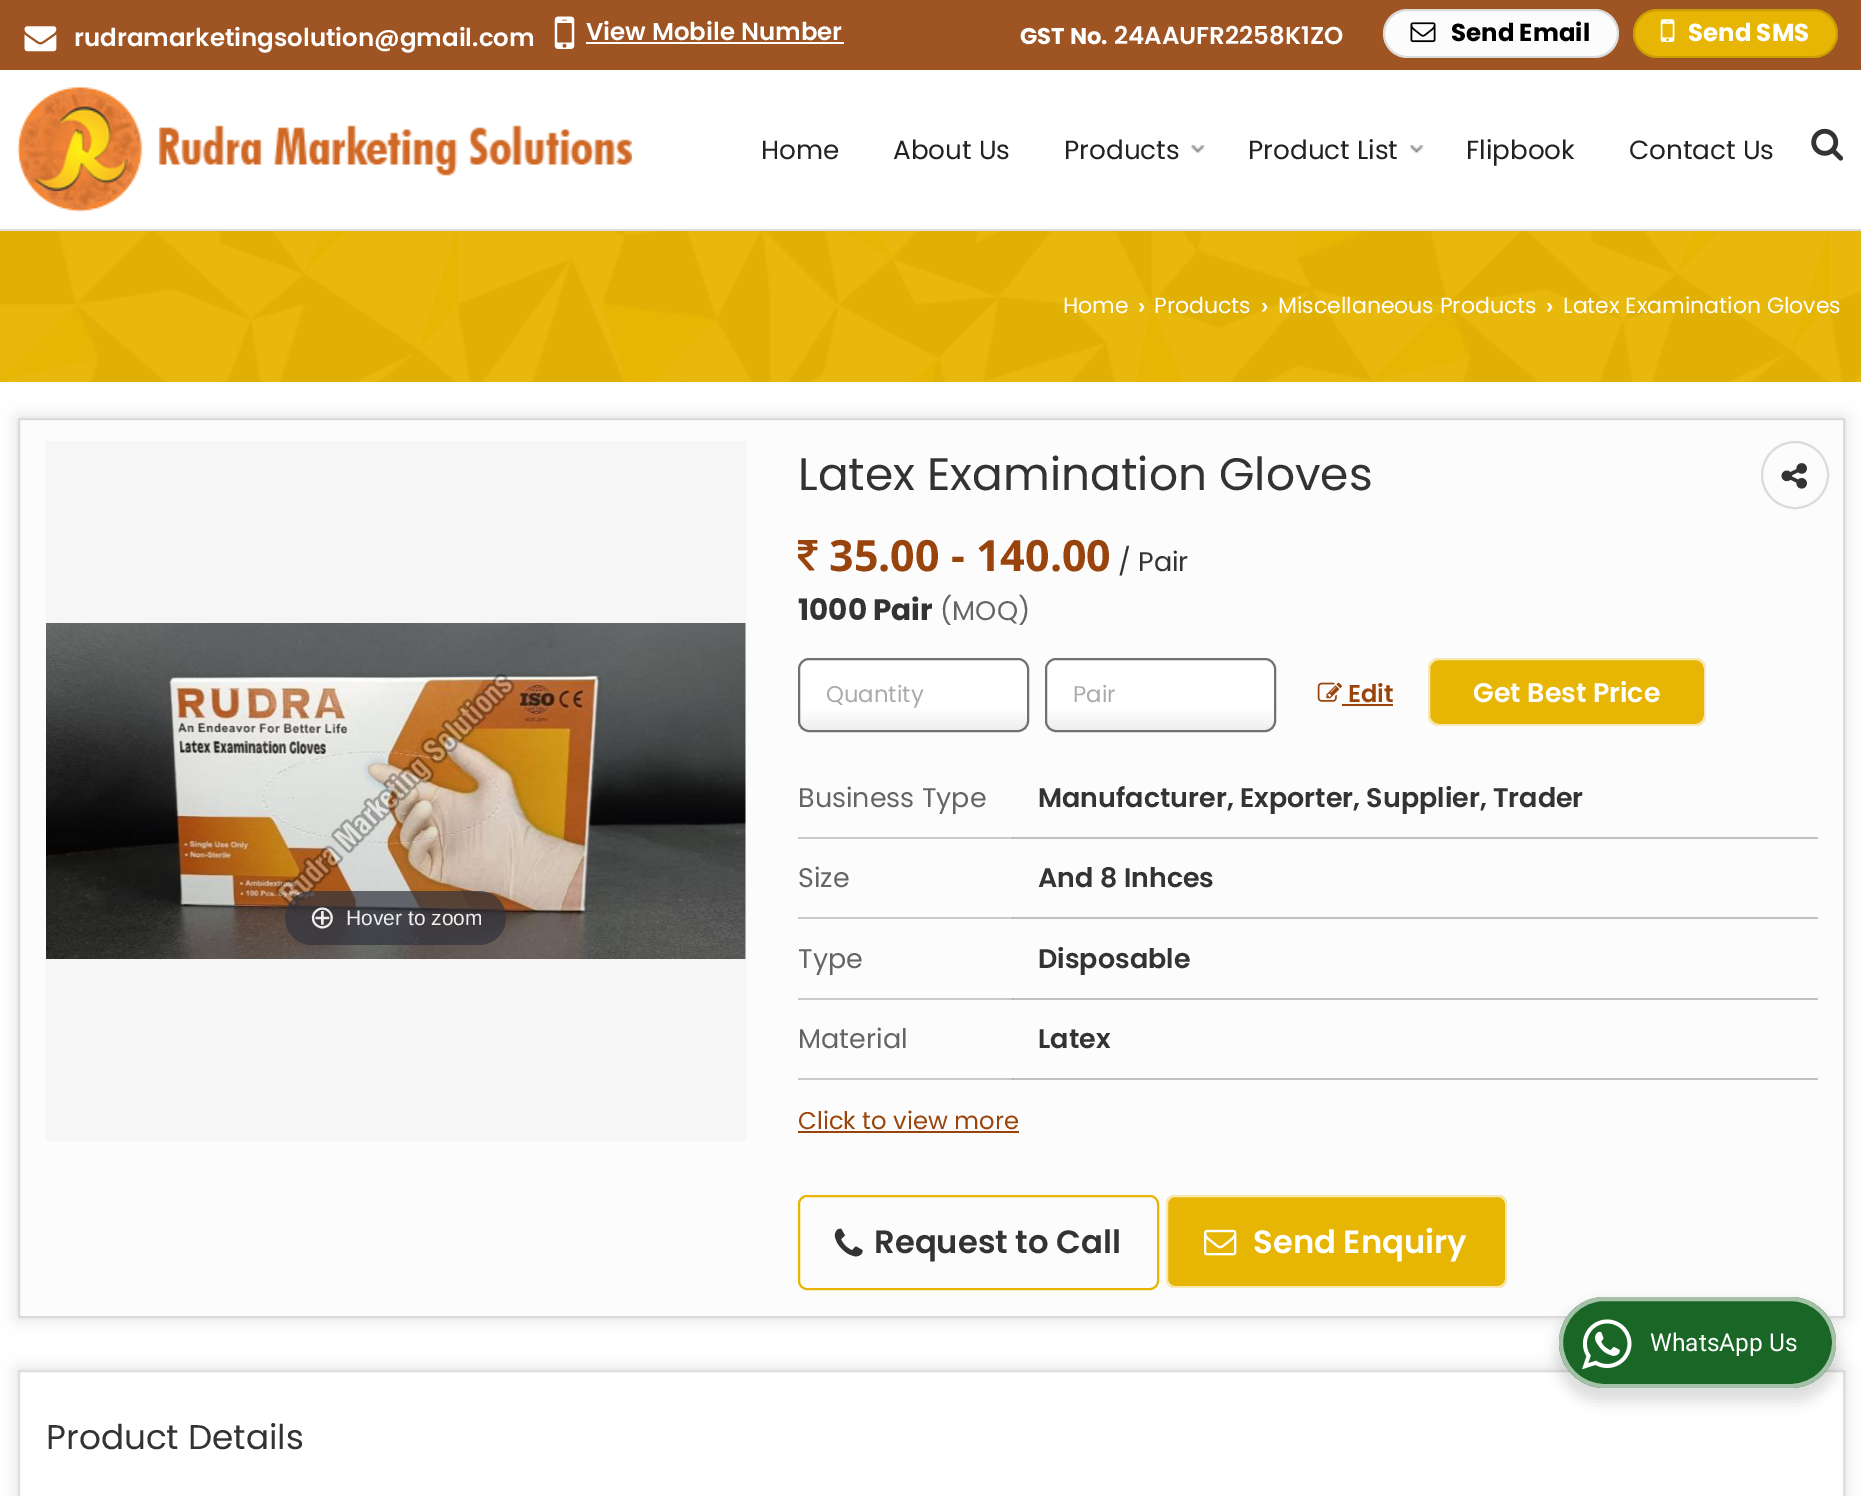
%!PS-Adobe-3.0
%%BoundingBox: 0 0 1861 1496
%%LanguageLevel: 3
%%Pages: 1
%%EndComments
%%BeginProlog
/m { moveto } bind def
/l { lineto } bind def
/h { closepath } bind def
/f { fill } bind def
/S { stroke } bind def
/q { gsave } bind def
/Q { grestore } bind def
/w { setlinewidth } bind def
/fn { [ exch dup neg 0 0 3 -1 roll 0 0 ] selectfont } def
/tx { moveto show } def
/bx { rectfill } def
/al { dup .setfillconstantalpha .setstrokeconstantalpha } def
/ci { newpath 0 360 arc closepath } def
/rr { 5 dict begin { /r /h /w /y /x } { exch def } forall
  x r add y moveto x w add y 2 copy h add r arct x w add y h add x 1 index r arct
  x y h add x y r arct x y 2 copy exch w add exch r arct closepath end } def
/sh { 12 dict begin { /a /b /q /h /w /y /x } { exch def } forall gsave /was 0 def
  9 -2 -9 { dup b mul 4 div /e exch def 1 sub .425 mul 2.718 exch exp 1 add a .99 .min exch div /now exch def
    1 1 now sub 1 was sub div sub al /was now def
    w h .min e 2 mul add 0 gt { x e sub y e sub w e 2 mul add h e 2 mul add
      q e add b .6 mul add w h .min 2 div e add .min 0 .max rr fill } if } for grestore end } def
/im { 5 dict begin { /h /w /y /x /name } { exch def } forall
  gsave x y translate w h scale
  w h 8 [w 0 0 h 0 0] name (r) file false 3 colorimage grestore end } def
%%EndProlog
%%BeginSetup
<< /PageSize [1861 1496] /PageUsesTransparency true >> setpagedevice
%%EndSetup
%%Page: 1 1
0 .pushpdf14devicefilter
0 1496 translate 1 -1 scale
4 setmiterlimit
1 setgray
0 0 1861 1496 bx
0.62 0.329 0.137 setrgbcolor
0 0 1861 70 bx
(image0.raw) 24 26 33 26 im
/Poppins-SemiBold 24.5 fn
1 setgray
(rudramarketingsolution@gmail.com) 74 46 tx
(image1.raw) 554 16 21 33 im
(View Mobile Number) 586 40 tx
586 42 258 2 bx
/Poppins-Bold 22.75 fn
(GST No.) 1020 44 tx
/Poppins-SemiBold 24.5 fn
(24AAUFR2258K1ZO) 1114 44 tx
0.988 setgray
1383 9 236 49 24.5 rr f
0.13 al
0 setgray
2 w
1384 10 234 47 23.5 rr S
1 al
(image2.raw) 1410 22 26 21 im
/Poppins-Bold 24.5 fn
(Send Email) 1451 41 tx
0.906 0.714 0.016 setrgbcolor
1633 9 205 49 24.5 rr f
0.13 al
0 setgray
1634 10 203 47 23.5 rr S
1 al
(image3.raw) 1660 19 15 23 im
1 setgray
(Send SMS) 1688 41 tx
0.871 setgray
0 229 1861 2 bx
(image4.raw) 17 87 615 125 im
/Poppins-Regular 26.25 fn
0.133 setgray
(Home) 761 159 tx
(About Us) 893 159 tx
(Products) 1064 159 tx
(image5.raw) 1191 145 14 9 im
(Product List) 1248 159 tx
(image6.raw) 1410 145 14 9 im
(Flipbook) 1466 159 tx
(Contact Us) 1629 159 tx
(image7.raw) 1811 128 33 33 im
0.906 0.714 0.016 setrgbcolor
0 231 1861 151 bx
(image8.raw) 0 231 1861 151 im
/Poppins-Regular 22 fn
1 setgray
(Home) 1063 313 tx
/LiberationSans-Bold 22 fn
(›) 1138 313 tx
/Poppins-Regular 22 fn
(Products) 1154 313 tx
/LiberationSans-Bold 22 fn
(›) 1261 313 tx
/Poppins-Regular 22 fn
(Miscellaneous Products) 1278 313 tx
/LiberationSans-Bold 22 fn
(›) 1546 313 tx
/Poppins-Regular 22 fn
(Latex Examination Gloves) 1563 313 tx
0.8 setgray
18 418 1827 900 0 9 0.67 sh
0.988 setgray
19 419 m 1844 419 l 1844 1317 l 19 1317 l h q f Q
0.859 setgray
S
0.965 setgray
46 441 700 700 bx
(image9.raw) 46 623 700 336 im
0.7 al
0.192 0.2 0.239 setrgbcolor
285 891 221 54 27 rr f
/DejaVuSans-Regular 32 fn
1 al
0.933 setgray
(⊕) 309 928 tx
/LiberationSans-Regular 21 fn
(Hover to zoom) 346 925 tx
/Poppins-Regular 45.5 fn
0.2 setgray
(Latex Examination Gloves) 798 490 tx
0.859 setgray
1795 475 33 ci S
(image10.raw) 1781 463 26 26 im
(image11.raw) 798 540 20 31 im
/OpenSans-Bold 43 fn
0.596 0.267 0.047 setrgbcolor
(35.00 - 140.00) 829 571 tx
/Poppins-Regular 26.95 fn
0.2 setgray
(/ Pair) 1118 571 tx
/Poppins-Bold 29.5 fn
(1000 Pair) 798 620 tx
/Poppins-Regular 26.95 fn
0.396 setgray
(\(MOQ\)) 940 620 tx
q
798 658 231 74 11 rr clip newpath
q 798 660 m 1029 660 l 1029 730 l 798 730 l h clip newpath
<< /ShadingType 2 /ColorSpace /DeviceRGB /Coords [914 660 914 730] /Extend [true true] /Function << /FunctionType 3 /Domain [0 1] /Functions [<< /FunctionType 2 /Domain [0 1] /C0 [1 1 1] /C1 [1 1 1] /N 1 >> << /FunctionType 2 /Domain [0 1] /C0 [1 1 1] /C1 [0.933 0.933 0.933] /N 1 >>] /Bounds [0.7] /Encode [0 1 0 1] >> >> shfill Q
Q
0.443 setgray
799 659 229 72 10 rr S
/Poppins-Regular 22.75 fn
0.667 setgray
(Quantity) 826 702 tx
q
1045 658 231 74 11 rr clip newpath
q 1045 660 m 1276 660 l 1276 730 l 1045 730 l h clip newpath
<< /ShadingType 2 /ColorSpace /DeviceRGB /Coords [1160 660 1160 730] /Extend [true true] /Function << /FunctionType 3 /Domain [0 1] /Functions [<< /FunctionType 2 /Domain [0 1] /C0 [1 1 1] /C1 [1 1 1] /N 1 >> << /FunctionType 2 /Domain [0 1] /C0 [1 1 1] /C1 [0.933 0.933 0.933] /N 1 >>] /Bounds [0.7] /Encode [0 1 0 1] >> >> shfill Q
Q
0.443 setgray
1046 659 229 72 10 rr S
0.667 setgray
(Pair) 1073 702 tx
(image12.raw) 1317 682 25 20 im
/Poppins-SemiBold 24.25 fn
0.596 0.267 0.047 setrgbcolor
(Edit) 1348 702 tx
1342 704 51 2 bx
0.906 0.714 0.016 setrgbcolor
1428 658 278 68 11 rr f
0.7 al
1 setgray
1429 659 276 66 10 rr S
/Poppins-SemiBold 26.95 fn
1 al
(Get Best Price) 1473 702 tx
/Poppins-Regular 26.95 fn
0.396 setgray
(Business Type) 798 807 tx
0.792 setgray
798 837 215 2 bx
0.757 setgray
1012 837 806 2 bx
0.675 setgray
1012 837 1 2 bx
/Poppins-SemiBold 26.95 fn
0.2 setgray
(Manufacturer, Exporter, Supplier, Trader) 1038 807 tx
/Poppins-Regular 26.95 fn
0.396 setgray
(Size) 798 887 tx
0.792 setgray
798 917 215 2 bx
0.757 setgray
1012 917 806 2 bx
0.675 setgray
1012 917 1 2 bx
/Poppins-SemiBold 26.95 fn
0.2 setgray
(And 8 Inhces) 1038 887 tx
/Poppins-Regular 26.95 fn
0.396 setgray
(Type) 798 968 tx
0.792 setgray
798 998 215 2 bx
0.757 setgray
1012 998 806 2 bx
0.675 setgray
1012 998 1 2 bx
/Poppins-SemiBold 26.95 fn
0.2 setgray
(Disposable) 1038 968 tx
/Poppins-Regular 26.95 fn
0.396 setgray
(Material) 798 1048 tx
0.792 setgray
798 1078 215 2 bx
0.757 setgray
1012 1078 806 2 bx
0.675 setgray
1012 1078 1 2 bx
/Poppins-SemiBold 26.95 fn
0.2 setgray
(Latex) 1038 1048 tx
/Poppins-Regular 24.25 fn
0.596 0.267 0.047 setrgbcolor
(Click to view more) 798 1129 tx
798 1131 221 2 bx
0.906 0.714 0.016 setrgbcolor
799 1196 359 93 8 rr S
(image13.raw) 834 1228 29 29 im
/Poppins-SemiBold 32.25 fn
0.2 setgray
(Request to Call) 874 1253 tx
0.906 0.714 0.016 setrgbcolor
1166 1195 341 93 9 rr f
0.7 al
1 setgray
1167 1196 339 91 8 rr S
1 al
(image14.raw) 1204 1229 33 27 im
(Send Enquiry) 1253 1253 tx
q
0 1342 m 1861 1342 l 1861 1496 l 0 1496 l h 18 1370 m 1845 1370 l 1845 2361 l 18 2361 l h eoclip newpath
0.8 setgray
18 1370 1827 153 0 9 0.67 sh
Q
0.13 al
0 setgray
19 1371 1825 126 rectstroke
/Poppins-Regular 34.25 fn
1 al
0.2 setgray
(Product Details) 46 1449 tx
0 setgray
1556 1304 283 98 49 7 0.14 sh
0.098 0.4 0.149 setrgbcolor
1559 1297 277 91 45.5 rr f
0.6 al
1 setgray
4 w
1561 1299 273 87 43.5 rr S
1 al
(image15.raw) 1582 1319 50 51 im
/Roboto-Regular 24.5 fn
(WhatsApp Us) 1650 1351 tx
.poppdf14devicefilter showpage
%%EOF
